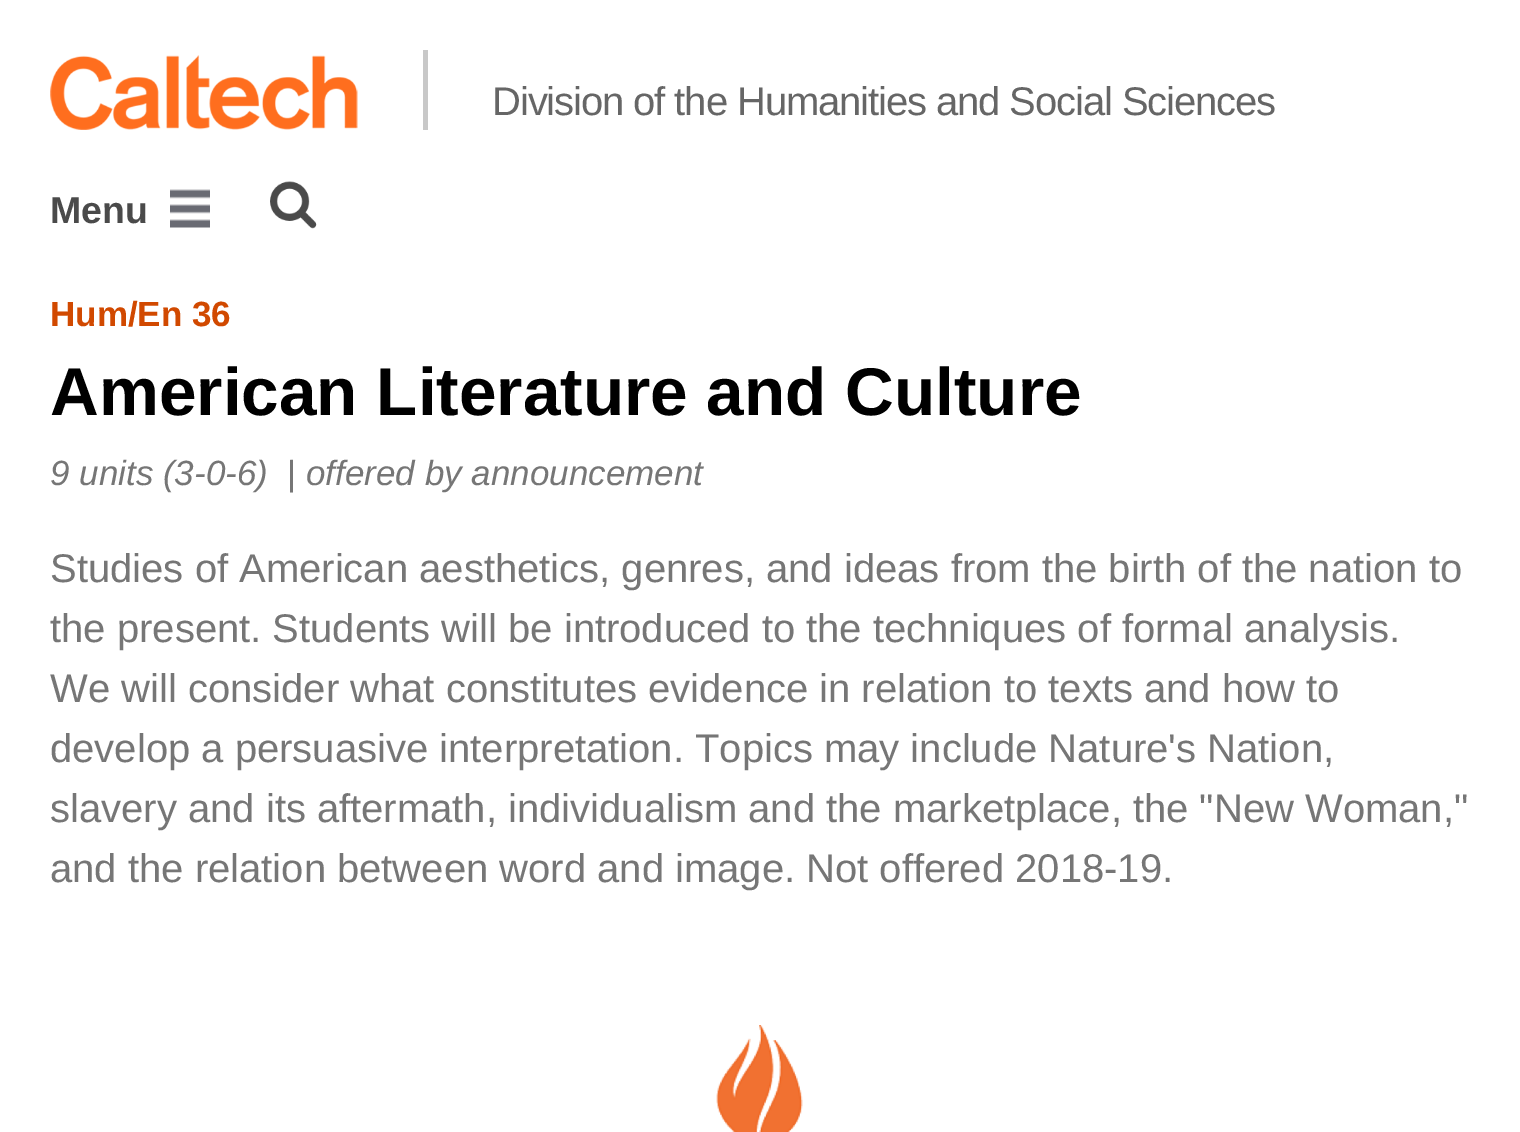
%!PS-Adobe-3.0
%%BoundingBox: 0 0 1520 1132
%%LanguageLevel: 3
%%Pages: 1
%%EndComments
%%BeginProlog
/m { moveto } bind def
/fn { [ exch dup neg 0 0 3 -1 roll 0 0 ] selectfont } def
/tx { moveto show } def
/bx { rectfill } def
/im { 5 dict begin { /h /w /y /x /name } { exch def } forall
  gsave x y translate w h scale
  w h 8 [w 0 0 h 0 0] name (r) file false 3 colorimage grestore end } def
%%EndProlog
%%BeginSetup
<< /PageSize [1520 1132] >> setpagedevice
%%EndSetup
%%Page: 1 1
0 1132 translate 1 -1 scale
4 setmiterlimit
1 setgray
0 0 1520 1132 bx
(image0.raw) 50 55 308 75 im
0.784 setgray
423 50 5 80 bx
/LiberationSans-Regular 40 fn
0.4 setgray
492 115 m -1.1 0 (Division of the Humanities and Social Sciences) ashow
/LiberationSans-Bold 37.5 fn
0.29 setgray
(Menu) 50 223 tx
(image1.raw) 170 189 40 39 im
(image2.raw) 270 181 47 48 im
/LiberationSans-Bold 35 fn
0.82 0.286 0 setrgbcolor
(Hum/En 36) 50 326 tx
/LiberationSans-Bold 67.5 fn
0 setgray
(American Literature and Culture) 50 415 tx
/LiberationSans-Italic 35 fn
0.463 setgray
(9 units \(3-0-6\)) 50 485 tx
/LiberationSans-Regular 35 fn
(|) 287 485 tx
/LiberationSans-Italic 35 fn
(offered by announcement) 306 485 tx
/LiberationSans-Regular 40 fn
(Studies of American aesthetics, genres, and ideas from the birth of the nation to) 50 582 tx
(the present. Students will be introduced to the techniques of formal analysis.) 50 642 tx
(We will consider what constitutes evidence in relation to texts and how to) 50 702 tx
(develop a persuasive interpretation. Topics may include Nature's Nation,) 50 762 tx
(slavery and its aftermath, individualism and the marketplace, the "New Woman,") 50 822 tx
(and the relation between word and image. Not offered 2018-19.) 50 882 tx
(image3.raw) 716 1025 87 107 im
showpage
%%EOF
